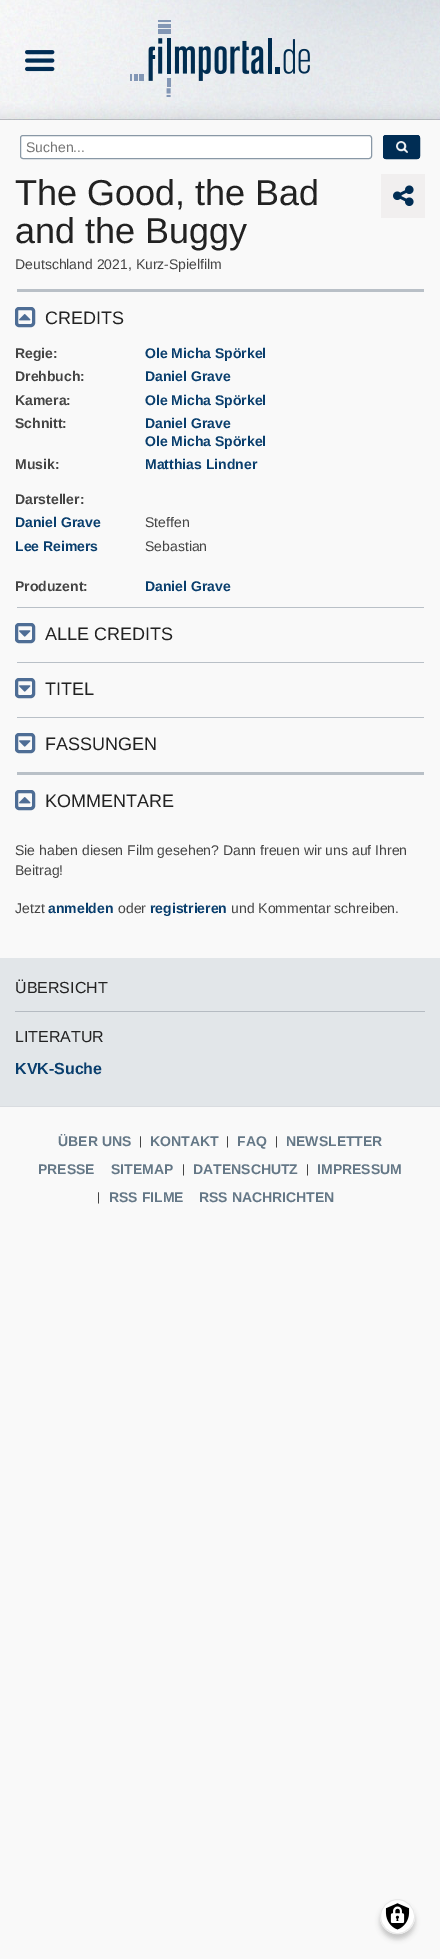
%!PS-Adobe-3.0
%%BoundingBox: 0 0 440 1959
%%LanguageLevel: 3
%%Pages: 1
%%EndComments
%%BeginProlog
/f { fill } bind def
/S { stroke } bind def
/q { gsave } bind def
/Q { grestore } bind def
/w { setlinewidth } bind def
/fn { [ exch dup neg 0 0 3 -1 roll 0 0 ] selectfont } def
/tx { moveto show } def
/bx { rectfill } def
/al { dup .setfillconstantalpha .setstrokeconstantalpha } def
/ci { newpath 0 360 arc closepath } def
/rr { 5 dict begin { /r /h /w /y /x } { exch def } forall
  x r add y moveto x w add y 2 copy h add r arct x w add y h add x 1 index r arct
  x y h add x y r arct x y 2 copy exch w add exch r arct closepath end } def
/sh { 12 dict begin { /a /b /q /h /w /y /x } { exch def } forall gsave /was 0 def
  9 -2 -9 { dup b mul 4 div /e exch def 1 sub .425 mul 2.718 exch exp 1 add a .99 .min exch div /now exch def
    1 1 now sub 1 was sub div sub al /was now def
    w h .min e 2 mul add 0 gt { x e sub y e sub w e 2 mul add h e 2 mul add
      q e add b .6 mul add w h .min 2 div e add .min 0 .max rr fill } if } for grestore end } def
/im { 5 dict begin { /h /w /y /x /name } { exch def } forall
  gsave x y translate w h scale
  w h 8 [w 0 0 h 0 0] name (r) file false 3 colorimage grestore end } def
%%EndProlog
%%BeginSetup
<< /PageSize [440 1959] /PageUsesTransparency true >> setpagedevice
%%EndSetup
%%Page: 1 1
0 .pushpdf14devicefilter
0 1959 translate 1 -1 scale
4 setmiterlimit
0.976 setgray
0 0 440 1959 bx
(image0.raw) 0 0 440 120 im
(image1.raw) 25 50 30 22 im
(image2.raw) 130 20 180 77 im
1 setgray
20.5 135.5 351 23 2.5 rr q f Q
0.537 0.596 0.651 setrgbcolor
S
/LiberationSans-Regular 14 fn
0.459 setgray
(Suchen...) 26 152 tx
0 0.176 0.329 setrgbcolor
383 135 37 24 3 rr f
(image3.raw) 396 141 12 12 im
383.5 135.5 36 23 2.5 rr S
/LiberationSans-Regular 36 fn
0.133 setgray
(The Good, the Bad) 15 205 tx
(and the Buggy) 15 243 tx
0.945 0.937 0.937 setrgbcolor
381 174 44 44 bx
(image4.raw) 393 185 21 21 im
/LiberationSans-Regular 14 fn
0.267 setgray
(Deutschland 2021, Kurz-Spielfilm) 15 269 tx
0.725 0.753 0.78 setrgbcolor
17 289 407 3 bx
0.306 0.427 0.584 setrgbcolor
3 w
16.5 308.5 17 17 2.5 rr S
(image5.raw) 19 314 12 7 im
/LiberationSans-Regular 18 fn
0.133 setgray
(CREDITS) 45 324 tx
/LiberationSans-Bold 14 fn
0.267 setgray
(Regie:) 15 358 tx
0.035 0.243 0.427 setrgbcolor
(Ole Micha Spörkel) 145 358 tx
0.267 setgray
(Drehbuch:) 15 381 tx
0.035 0.243 0.427 setrgbcolor
(Daniel Grave) 145 381 tx
0.267 setgray
(Kamera:) 15 405 tx
0.035 0.243 0.427 setrgbcolor
(Ole Micha Spörkel) 145 405 tx
0.267 setgray
(Schnitt:) 15 428 tx
0.035 0.243 0.427 setrgbcolor
(Daniel Grave) 145 428 tx
(Ole Micha Spörkel) 145 446 tx
0.267 setgray
(Musik:) 15 469 tx
0.035 0.243 0.427 setrgbcolor
(Matthias Lindner) 145 469 tx
0.267 setgray
(Darsteller:) 15 504 tx
0.035 0.243 0.427 setrgbcolor
(Daniel Grave) 15 527 tx
/LiberationSans-Regular 14 fn
0.267 setgray
(Steffen) 145 527 tx
/LiberationSans-Bold 14 fn
0.035 0.243 0.427 setrgbcolor
(Lee Reimers) 15 551 tx
/LiberationSans-Regular 14 fn
0.267 setgray
(Sebastian) 145 551 tx
/LiberationSans-Bold 14 fn
(Produzent:) 15 591 tx
0.035 0.243 0.427 setrgbcolor
(Daniel Grave) 145 591 tx
0.725 0.753 0.78 setrgbcolor
17 607 407 1 bx
0.306 0.427 0.584 setrgbcolor
16.5 624.5 17 17 2.5 rr S
(image6.raw) 19 630 12 7 im
/LiberationSans-Regular 18 fn
0.133 setgray
(ALLE CREDITS) 45 640 tx
0.725 0.753 0.78 setrgbcolor
17 662 407 1 bx
0.306 0.427 0.584 setrgbcolor
16.5 679.5 17 17 2.5 rr S
(image6.raw) 19 685 12 7 im
0.133 setgray
(TITEL) 45 695 tx
0.725 0.753 0.78 setrgbcolor
17 717 407 1 bx
0.306 0.427 0.584 setrgbcolor
16.5 734.5 17 17 2.5 rr S
(image6.raw) 19 740 12 7 im
0.133 setgray
(FASSUNGEN) 45 750 tx
0.725 0.753 0.78 setrgbcolor
17 772 407 3 bx
0.306 0.427 0.584 setrgbcolor
16.5 791.5 17 17 2.5 rr S
(image5.raw) 19 797 12 7 im
0.133 setgray
(KOMMENTARE) 45 807 tx
/LiberationSans-Regular 14 fn
0.267 setgray
(Sie haben diesen Film gesehen? Dann freuen wir uns auf Ihren) 15 855 tx
(Beitrag!) 15 875 tx
(Jetzt) 15 913 tx
/LiberationSans-Bold 14 fn
0.035 0.243 0.427 setrgbcolor
(anmelden) 48 913 tx
/LiberationSans-Regular 14 fn
0.267 setgray
(oder) 118 913 tx
/LiberationSans-Bold 14 fn
0.035 0.243 0.427 setrgbcolor
(registrieren) 150 913 tx
/LiberationSans-Regular 14 fn
0.267 setgray
(und Kommentar schreiben.) 231 913 tx
0.886 0.902 0.914 setrgbcolor
0 958 440 148 bx
0.71 0.733 0.761 setrgbcolor
15 1011 410 1 bx
/LiberationSans-Regular 16 fn
0.133 setgray
(ÜBERSICHT) 15 993 tx
(LITERATUR) 15 1042 tx
/LiberationSans-Bold 16 fn
0.035 0.243 0.427 setrgbcolor
(KVK-Suche) 15 1074 tx
0.851 0.863 0.878 setrgbcolor
0 1106 440 1 bx
/LiberationSans-Bold 14 fn
0.392 0.467 0.525 setrgbcolor
(ÜBER UNS) 58 1146 tx
/LiberationSans-Regular 12 fn
0.267 setgray
(|) 139 1145 tx
/LiberationSans-Bold 14 fn
0.392 0.467 0.525 setrgbcolor
(KONTAKT) 150 1146 tx
/LiberationSans-Regular 12 fn
0.267 setgray
(|) 226 1145 tx
/LiberationSans-Bold 14 fn
0.392 0.467 0.525 setrgbcolor
(FAQ) 237 1146 tx
/LiberationSans-Regular 12 fn
0.267 setgray
(|) 275 1145 tx
/LiberationSans-Bold 14 fn
0.392 0.467 0.525 setrgbcolor
(NEWSLETTER) 286 1146 tx
(PRESSE) 38 1174 tx
(SITEMAP) 111 1174 tx
/LiberationSans-Regular 12 fn
0.267 setgray
(|) 182 1173 tx
/LiberationSans-Bold 14 fn
0.392 0.467 0.525 setrgbcolor
(DATENSCHUTZ) 193 1174 tx
/LiberationSans-Regular 12 fn
0.267 setgray
(|) 306 1173 tx
/LiberationSans-Bold 14 fn
0.392 0.467 0.525 setrgbcolor
(IMPRESSUM) 317 1174 tx
/LiberationSans-Regular 12 fn
0.267 setgray
(|) 97 1201 tx
/LiberationSans-Bold 14 fn
0.392 0.467 0.525 setrgbcolor
(RSS FILME) 109 1202 tx
(RSS NACHRICHTEN) 199 1202 tx
0 setgray
380 1904 35 35 17.5 2.5 0.2 sh
1 setgray
397.5 1916.5 17.5 ci f
(image7.raw) 385 1903 25 27 im
0.918 setgray
1 w
397.5 1916.5 17 ci S
.poppdf14devicefilter showpage
%%EOF
